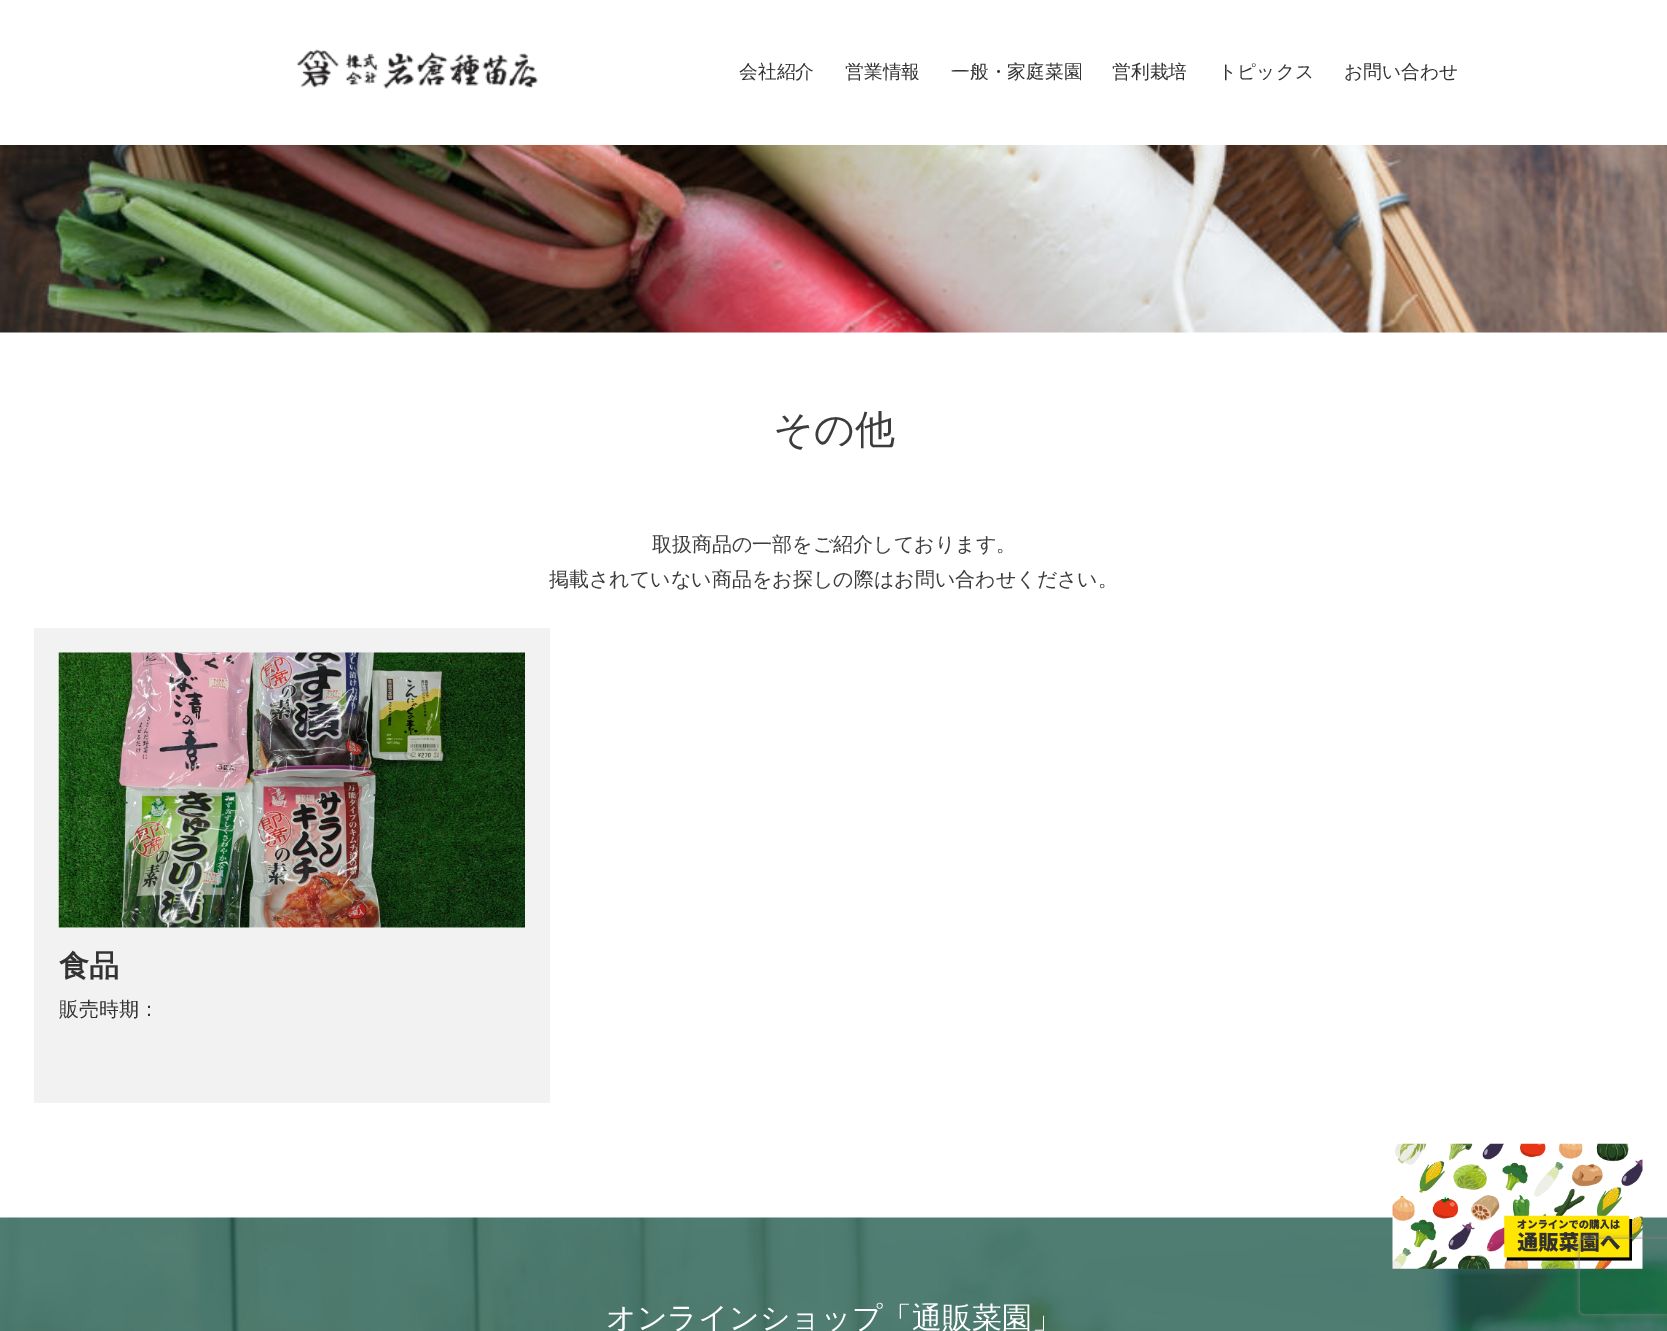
%!PS-Adobe-3.0
%%BoundingBox: 0 0 1667 1331
%%LanguageLevel: 3
%%Pages: 1
%%EndComments
%%BeginProlog
/m { moveto } bind def
/l { lineto } bind def
/c { curveto } bind def
/h { closepath } bind def
/q { gsave } bind def
/Q { grestore } bind def
/fn { [ exch dup neg 0 0 3 -1 roll 0 0 ] selectfont } def
/tx { moveto show } def
/bx { rectfill } def
/al { dup .setfillconstantalpha .setstrokeconstantalpha } def
/rr { 5 dict begin { /r /h /w /y /x } { exch def } forall
  x r add y moveto x w add y 2 copy h add r arct x w add y h add x 1 index r arct
  x y h add x y r arct x y 2 copy exch w add exch r arct closepath end } def
/sh { 12 dict begin { /a /b /q /h /w /y /x } { exch def } forall gsave /was 0 def
  9 -2 -9 { dup b mul 4 div /e exch def 1 sub .425 mul 2.718 exch exp 1 add a .99 .min exch div /now exch def
    1 1 now sub 1 was sub div sub al /was now def
    w h .min e 2 mul add 0 gt { x e sub y e sub w e 2 mul add h e 2 mul add
      q e add b .6 mul add w h .min 2 div e add .min 0 .max rr fill } if } for grestore end } def
/im { 5 dict begin { /h /w /y /x /name } { exch def } forall
  gsave x y translate w h scale
  w h 8 [w 0 0 h 0 0] name (r) file false 3 colorimage grestore end } def
%%EndProlog
%%BeginSetup
<< /PageSize [1667 1331] /PageUsesTransparency true >> setpagedevice
%%EndSetup
%%Page: 1 1
0 .pushpdf14devicefilter
0 1331 translate 1 -1 scale
4 setmiterlimit
1 setgray
0 0 1667 1331 bx
(image0.raw) 296 49 242 40 im
/WenQuanYiZenHei-Medium 18.75 fn
0.2 setgray
(会社紹介) 739 78 tx
(営業情報) 845 78 tx
(一般・家庭菜園) 951 78 tx
(営利栽培) 1112 78 tx
(トピックス) 1218 78 tx
(お問い合わせ) 1344 78 tx
(image1.raw) 0 145 1667 188 im
/WenQuanYiZenHei-Medium 40 fn
0.235 setgray
(その他) 773 443 tx
/WenQuanYiZenHei-Medium 20 fn
(取扱商品の一部をご紹介しております。) 652 551 tx
(掲載されていない商品をお探しの際はお問い合わせください。) 549 586 tx
0.949 setgray
34 628 516 475 bx
1 setgray
59 927 466 1 bx
(image2.raw) 58 652 467 276 im
/WenQuanYiZenHei-Bold 30 fn
0.2 setgray
(食品) 59 976 tx
/WenQuanYiZenHei-Medium 20 fn
(販売時期：) 59 1016 tx
(image3.raw) 0 1217 1667 114 im
/WenQuanYiZenHei-Medium 30 fn
1 setgray
(オンラインショップ「通販菜園」) 606 1328 tx
(image4.raw) 1392 1143 251 126 im
q
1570 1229 m 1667 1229 l 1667 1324 l 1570 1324 l h 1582.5 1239 m 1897.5 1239 l 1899 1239 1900 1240 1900 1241.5 c 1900 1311.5 l 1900 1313 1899 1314 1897.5 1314 c 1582.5 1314 l 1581 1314 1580 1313 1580 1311.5 c 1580 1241.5 l 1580 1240 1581 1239 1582.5 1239 c h eoclip newpath
0.502 setgray
1580 1239 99 75 2.5 3 1 sh
Q
.poppdf14devicefilter showpage
%%EOF
